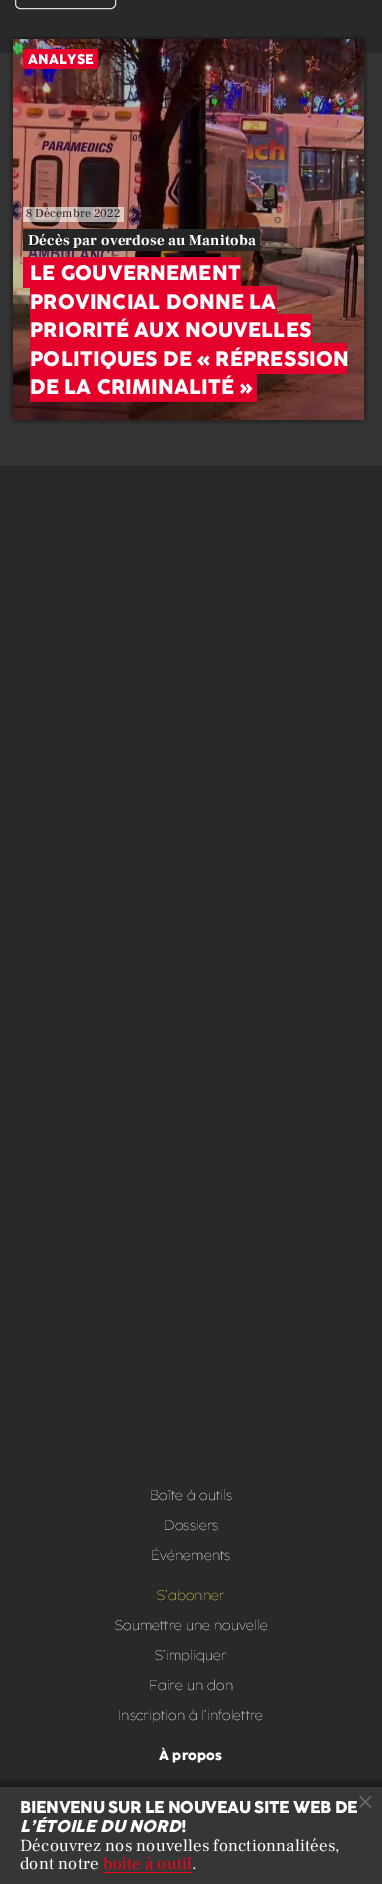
%!PS-Adobe-3.0
%%BoundingBox: 0 0 382 1884
%%LanguageLevel: 3
%%Pages: 1
%%EndComments
%%BeginProlog
/m { moveto } bind def
/S { stroke } bind def
/fn { [ exch dup neg 0 0 3 -1 roll 0 0 ] selectfont } def
/tx { moveto show } def
/bx { rectfill } def
/al { dup .setfillconstantalpha .setstrokeconstantalpha } def
/rr { 5 dict begin { /r /h /w /y /x } { exch def } forall
  x r add y moveto x w add y 2 copy h add r arct x w add y h add x 1 index r arct
  x y h add x y r arct x y 2 copy exch w add exch r arct closepath end } def
/sh { 12 dict begin { /a /b /q /h /w /y /x } { exch def } forall gsave /was 0 def
  9 -2 -9 { dup b mul 4 div /e exch def 1 sub .425 mul 2.718 exch exp 1 add a .99 .min exch div /now exch def
    1 1 now sub 1 was sub div sub al /was now def
    w h .min e 2 mul add 0 gt { x e sub y e sub w e 2 mul add h e 2 mul add
      q e add b .6 mul add w h .min 2 div e add .min 0 .max rr fill } if } for grestore end } def
/im { 5 dict begin { /h /w /y /x /name } { exch def } forall
  gsave x y translate w h scale
  w h 8 [w 0 0 h 0 0] name (r) file false 3 colorimage grestore end } def
%%EndProlog
%%BeginSetup
<< /PageSize [382 1884] /PageUsesTransparency true >> setpagedevice
%%EndSetup
%%Page: 1 1
0 .pushpdf14devicefilter
0 1884 translate 1 -1 scale
4 setmiterlimit
0.161 setgray
0 0 382 1884 bx
0.867 setgray
15.5 -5.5 100 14 4.5 rr S
0.2 setgray
0 53 382 413 bx
(image0.raw) 9 36 359 388 im
0.894 0 0.169 setrgbcolor
23 49 75 20 bx
/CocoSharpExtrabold-ExtraBold 14 fn
1 setgray
28 64 m 0.15 0 (ANALYSE) ashow
0.6 al
23 207 101 15 bx
/FrankRuhlLibre-Regular 12 fn
1 al
0.141 0.133 0.141 setrgbcolor
26 217 m 0.1 0 (8 Décembre 2022) ashow
0.145 setgray
23 229 237 22 bx
/FrankRuhlLibre-Bold 15 fn
1 setgray
28 245 m 0.15 0 (Décès par overdose au Manitoba) ashow
0.894 0 0.169 setrgbcolor
23 257 218 31 bx
/CocoSharpExtrabold-ExtraBold 21 fn
1 setgray
30 280 m 0.2 0 (LE GOUVERNEMENT) ashow
0.894 0 0.169 setrgbcolor
30 286 247 28 bx
1 setgray
30 309 m 0.2 0 (PROVINCIAL DONNE LA) ashow
0.894 0 0.169 setrgbcolor
30 314 282 29 bx
1 setgray
30 337 m 0.2 0 (PRIORITÉ AUX NOUVELLES) ashow
0.894 0 0.169 setrgbcolor
30 343 317 31 bx
1 setgray
30 366 m 0.2 0 (POLITIQUES DE « RÉPRESSION) ashow
0.894 0 0.169 setrgbcolor
30 374 227 28 bx
1 setgray
30 394 m 0.2 0 (DE LA CRIMINALITÉ ») ashow
/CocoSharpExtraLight-ExtraLight 14 fn
150 1500 m 0.15 0 (Boîte à outils) ashow
164 1530 m 0.15 0 (Dossiers) ashow
151 1560 m 0.15 0 (Événements) ashow
1 0.882 0.337 setrgbcolor
157 1600 m 0.15 0 (S’abonner) ashow
1 setgray
115 1630 m 0.15 0 (Soumettre une nouvelle) ashow
155 1660 m 0.15 0 (S’impliquer) ashow
149 1690 m 0.15 0 (Faire un don) ashow
118 1720 m 0.15 0 (Inscription à l’infolettre) ashow
/CocoSharpExtrabold-ExtraBold 14 fn
159 1760 m 0.15 0 (À propos) ashow
0 setgray
-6 1781 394 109 0 2 0.36 sh
0.212 setgray
0 1787 382 97 bx
/CocoSharpExtrabold-ExtraBold 17 fn
1 setgray
20 1813 m -0.35 0 (BIENVENU SUR LE NOUVEAU SITE WEB DE) ashow
/CocoSharpExtrabold-ExtraBoldItalic 17 fn
20 1832 m 0.15 0 (L’ÉTOILE DU NORD) ashow
/CocoSharpExtrabold-ExtraBold 17 fn
181 1832 m -0.35 0 (!) ashow
/FrankRuhlLibre-Regular 17 fn
20 1851 m 0.15 0 (Découvrez nos nouvelles fonctionnalitées,) ashow
20 1869 m 0.15 0 (dont notre) ashow
0.976 0 0.11 setrgbcolor
103 1869 m 0.15 0 (boîte à outil) ashow
103 1872 89 1 bx
1 setgray
192 1869 m 0.15 0 (.) ashow
/FrankRuhlLibre-Regular 30 fn
0.4 setgray
(×) 357 1809 tx
.poppdf14devicefilter showpage
%%EOF
